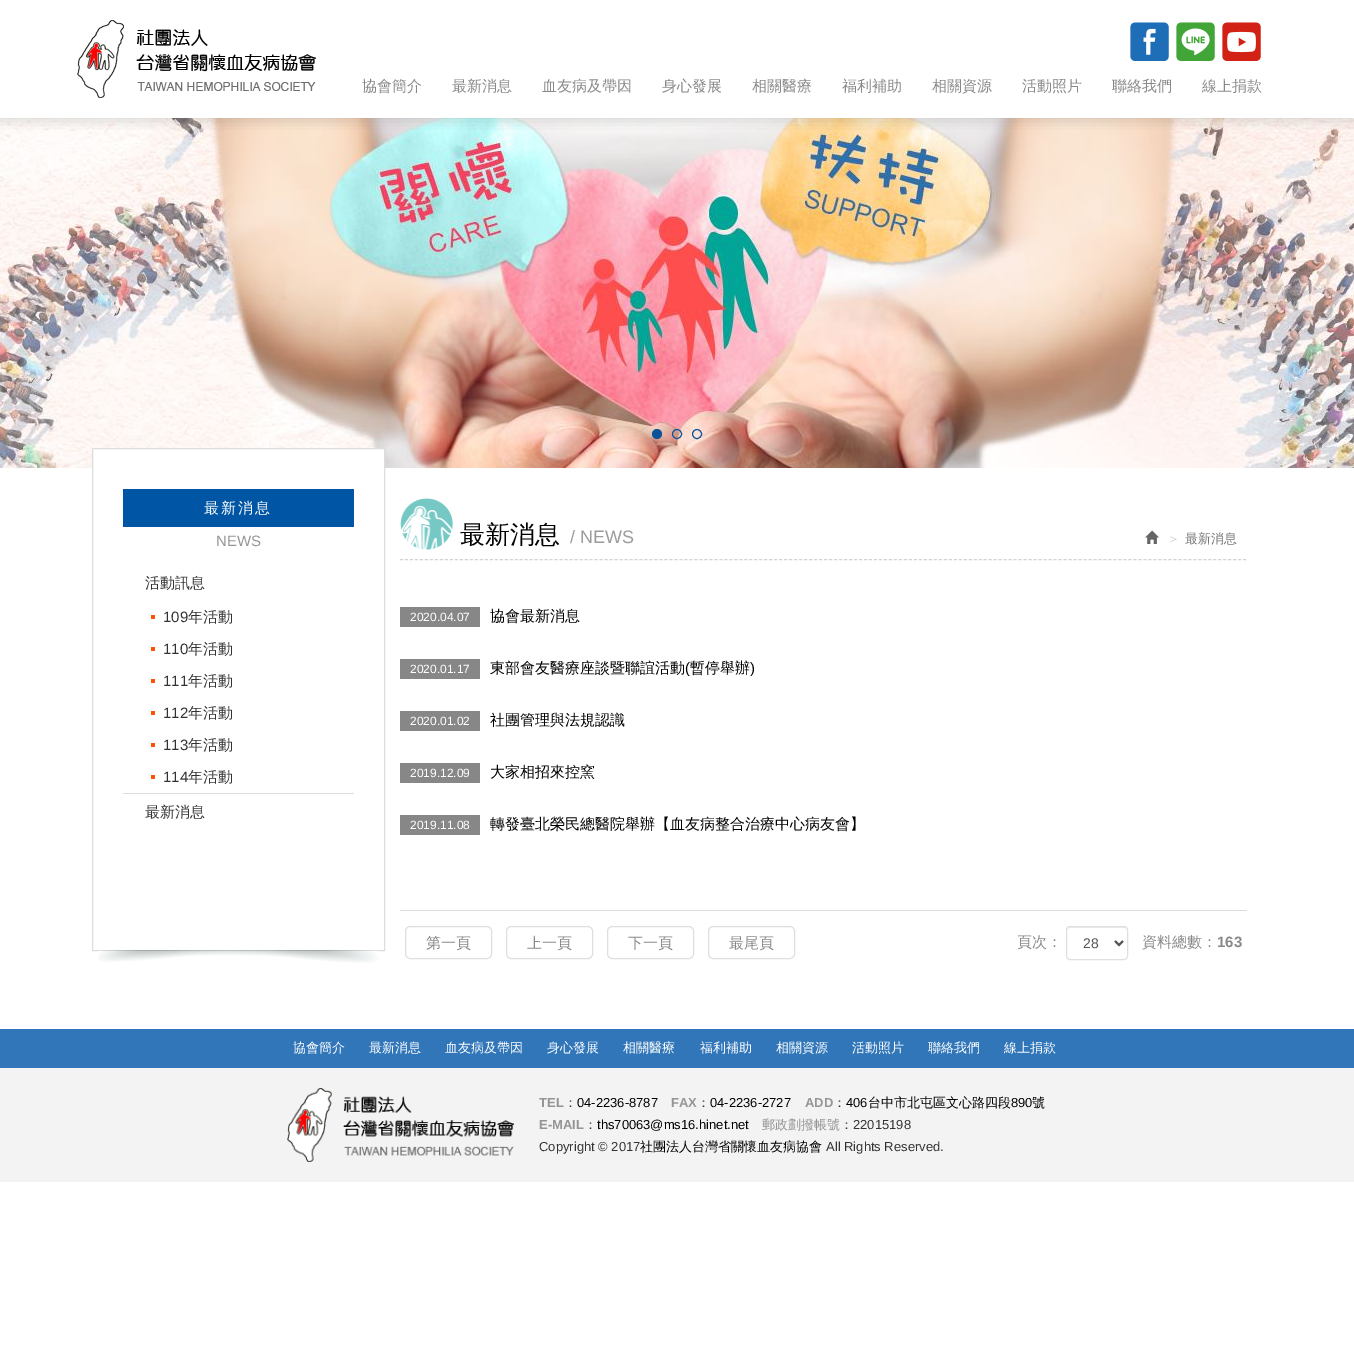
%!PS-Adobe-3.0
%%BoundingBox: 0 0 1354 1368
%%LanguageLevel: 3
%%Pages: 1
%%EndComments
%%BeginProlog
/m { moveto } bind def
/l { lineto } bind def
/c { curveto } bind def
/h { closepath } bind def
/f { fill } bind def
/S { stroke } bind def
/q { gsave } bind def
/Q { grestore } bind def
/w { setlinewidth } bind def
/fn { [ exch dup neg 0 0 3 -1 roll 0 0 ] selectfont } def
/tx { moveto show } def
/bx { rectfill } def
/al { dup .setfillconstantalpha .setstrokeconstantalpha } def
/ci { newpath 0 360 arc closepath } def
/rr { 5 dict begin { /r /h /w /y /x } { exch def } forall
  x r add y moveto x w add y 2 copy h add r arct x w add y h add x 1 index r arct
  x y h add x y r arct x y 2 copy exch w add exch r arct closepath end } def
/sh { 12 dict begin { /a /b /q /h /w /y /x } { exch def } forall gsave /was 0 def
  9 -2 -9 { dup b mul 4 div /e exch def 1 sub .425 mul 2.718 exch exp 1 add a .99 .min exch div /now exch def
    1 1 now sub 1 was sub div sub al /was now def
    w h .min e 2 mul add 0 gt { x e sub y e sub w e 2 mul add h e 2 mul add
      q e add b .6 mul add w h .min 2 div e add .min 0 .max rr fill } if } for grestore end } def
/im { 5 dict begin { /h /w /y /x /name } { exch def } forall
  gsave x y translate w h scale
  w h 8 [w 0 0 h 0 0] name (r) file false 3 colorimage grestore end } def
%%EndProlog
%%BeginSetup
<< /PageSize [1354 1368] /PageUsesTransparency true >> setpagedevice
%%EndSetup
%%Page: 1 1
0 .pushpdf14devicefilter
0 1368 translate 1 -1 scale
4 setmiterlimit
1 setgray
0 0 1354 1368 bx
(image4.raw) 0 118 1354 350 im
q
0 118 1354 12 rectclip
0.267 setgray
-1 1 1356 120 0 7 0.21 sh
Q
(image0.raw) 77 20 239 78 im
(image1.raw) 1130 22 39 39 im
(image2.raw) 1176 22 39 39 im
(image3.raw) 1222 22 39 39 im
/WenQuanYiZenHei-Medium 15 fn
0.533 setgray
(協會簡介) 362 91 tx
(最新消息) 452 91 tx
(血友病及帶因) 542 91 tx
(身心發展) 662 91 tx
(相關醫療) 752 91 tx
(福利補助) 842 91 tx
(相關資源) 932 91 tx
(活動照片) 1022 91 tx
(聯絡我們) 1112 91 tx
(線上捐款) 1202 91 tx
0.039 0.325 0.596 setrgbcolor
657 434 5 ci f
677 434 4.5 ci S
697 434 4.5 ci S
1 setgray
93 449 291 19 bx
0.867 setgray
92.5 448.5 292 502 rectstroke
0 0.337 0.643 setrgbcolor
123 489 231 38 bx
1 setgray
204 513 m 2 0 (最新消息) ashow
/LiberationSans-Regular 15 fn
0.584 setgray
(NEWS) 216 546 tx
/WenQuanYiZenHei-Medium 15 fn
0.2 setgray
(活動訊息) 145 588 tx
1 0.322 0 setrgbcolor
151 615 4 4 bx
/LiberationSans-Regular 15 fn
0.2 setgray
(109) 163 622 tx
/WenQuanYiZenHei-Medium 15 fn
(年活動) 188 622 tx
1 0.322 0 setrgbcolor
151 647 4 4 bx
/LiberationSans-Regular 15 fn
0.2 setgray
(110) 163 654 tx
/WenQuanYiZenHei-Medium 15 fn
(年活動) 188 654 tx
1 0.322 0 setrgbcolor
151 679 4 4 bx
/LiberationSans-Regular 15 fn
0.2 setgray
(111) 163 686 tx
/WenQuanYiZenHei-Medium 15 fn
(年活動) 188 686 tx
1 0.322 0 setrgbcolor
151 711 4 4 bx
/LiberationSans-Regular 15 fn
0.2 setgray
(112) 163 718 tx
/WenQuanYiZenHei-Medium 15 fn
(年活動) 188 718 tx
1 0.322 0 setrgbcolor
151 743 4 4 bx
/LiberationSans-Regular 15 fn
0.2 setgray
(113) 163 750 tx
/WenQuanYiZenHei-Medium 15 fn
(年活動) 188 750 tx
1 0.322 0 setrgbcolor
151 775 4 4 bx
/LiberationSans-Regular 15 fn
0.2 setgray
(114) 163 782 tx
/WenQuanYiZenHei-Medium 15 fn
(年活動) 188 782 tx
0.867 setgray
123 793 231 1 bx
0.2 setgray
(最新消息) 145 817 tx
(image5.raw) 98 950 280 13 im
(image6.raw) 400 498 53 52 im
0.827 setgray
[3 1.99] 0 setdash
400 559.5 m 1247 559.5 l S
/WenQuanYiZenHei-Medium 25 fn
0 setgray
(最新消息) 460 543 tx
/LiberationSans-Regular 18 fn
0.612 setgray
(/ NEWS) 570 543 tx
(image7.raw) 1145 530 14 14 im
/WenQuanYiZenHei-Medium 13 fn
0.8 setgray
(＞) 1167 543 tx
0.467 setgray
(最新消息) 1185 543 tx
0.529 setgray
400 607 80 20 bx
/LiberationSans-Regular 12 fn
1 setgray
(2020.04.07) 410 621 tx
/WenQuanYiZenHei-Medium 15 fn
0 setgray
(協會最新消息) 490 621 tx
0.529 setgray
400 659 80 20 bx
/LiberationSans-Regular 12 fn
1 setgray
(2020.01.17) 410 673 tx
/WenQuanYiZenHei-Medium 15 fn
0 setgray
(東部會友醫療座談暨聯誼活動) 490 673 tx
/LiberationSans-Regular 15 fn
(\() 685 673 tx
/WenQuanYiZenHei-Medium 15 fn
(暫停舉辦) 690 673 tx
/LiberationSans-Regular 15 fn
(\)) 750 673 tx
0.529 setgray
400 711 80 20 bx
/LiberationSans-Regular 12 fn
1 setgray
(2020.01.02) 410 725 tx
/WenQuanYiZenHei-Medium 15 fn
0 setgray
(社團管理與法規認識) 490 725 tx
0.529 setgray
400 763 80 20 bx
/LiberationSans-Regular 12 fn
1 setgray
(2019.12.09) 410 777 tx
/WenQuanYiZenHei-Medium 15 fn
0 setgray
(大家相招來控窯) 490 777 tx
0.529 setgray
400 815 80 20 bx
/LiberationSans-Regular 12 fn
1 setgray
(2019.11.08) 410 829 tx
/WenQuanYiZenHei-Medium 15 fn
0 setgray
(轉發臺北榮民總醫院舉辦【血友病整合治療中心病友會】) 490 829 tx
0.867 setgray
400 910 847 1 bx
0.875 setgray
[] 0 setdash
405.5 926.5 86 32 4.5 rr S
0.533 setgray
(第一頁) 426 948 tx
0.875 setgray
506.5 926.5 86 32 4.5 rr S
0.533 setgray
(上一頁) 527 948 tx
0.875 setgray
607.5 926.5 86 32 4.5 rr S
0.533 setgray
(下一頁) 628 948 tx
0.875 setgray
708.5 926.5 86 32 4.5 rr S
0.533 setgray
(最尾頁) 729 948 tx
(頁次：) 1017 947 tx
0.925 setgray
1070 928 m 1124 928 l 1126 928 1127 929 1127 931 c 1127 925 1119 927 1115 927 c 1079 927 l 1075 927 1067 925 1067 931 c 1067 929 1068 928 1070 928 c h f
0.875 setgray
1066.5 926.5 61 33 3.5 rr S
0.333 setgray
2 w
1115 941 m 1119 945 l 1123 941 l S
/LiberationSans-Regular 14 fn
(28) 1083 948 tx
/WenQuanYiZenHei-Medium 15 fn
0.533 setgray
(資料總數：) 1142 947 tx
/LiberationSans-Bold 15 fn
(163) 1217 947 tx
0.192 0.463 0.725 setrgbcolor
0 1029 1354 39 bx
/WenQuanYiZenHei-Medium 13 fn
1 setgray
(協會簡介) 293 1052 tx
(最新消息) 369 1052 tx
(血友病及帶因) 445 1052 tx
(身心發展) 547 1052 tx
(相關醫療) 623 1052 tx
(福利補助) 700 1052 tx
(相關資源) 776 1052 tx
(活動照片) 852 1052 tx
(聯絡我們) 928 1052 tx
(線上捐款) 1004 1052 tx
0.953 setgray
0 1068 1354 114 bx
(image8.raw) 287 1088 227 74 im
/LiberationSans-Bold 13 fn
0.584 setgray
(TEL) 539 1107 tx
/WenQuanYiZenHei-Medium 13 fn
0.2 setgray
(：) 564 1107 tx
/LiberationSans-Regular 13 fn
0 setgray
(04-2236-8787) 577 1107 tx
/LiberationSans-Bold 13 fn
0.584 setgray
(FAX) 671 1107 tx
/WenQuanYiZenHei-Medium 13 fn
0.2 setgray
(：) 697 1107 tx
/LiberationSans-Regular 13 fn
0 setgray
(04-2236-2727) 710 1107 tx
/LiberationSans-Bold 13 fn
0.584 setgray
(ADD) 805 1107 tx
/WenQuanYiZenHei-Medium 13 fn
0.2 setgray
(：) 833 1107 tx
/LiberationSans-Regular 13 fn
0 setgray
(406) 846 1107 tx
/WenQuanYiZenHei-Medium 13 fn
(台中市北屯區文心路四段) 868 1107 tx
/LiberationSans-Regular 13 fn
(890) 1011 1107 tx
/WenQuanYiZenHei-Medium 13 fn
(號) 1032 1107 tx
/LiberationSans-Bold 13 fn
0.584 setgray
(E-MAIL) 539 1129 tx
/WenQuanYiZenHei-Medium 13 fn
0.2 setgray
(：) 584 1129 tx
/LiberationSans-Regular 13 fn
0 setgray
(ths70063@ms16.hinet.net) 597 1129 tx
/WenQuanYiZenHei-Medium 13 fn
0.584 setgray
(郵政劃撥帳號) 762 1129 tx
0.2 setgray
(：) 840 1129 tx
/LiberationSans-Regular 13 fn
(22015198) 853 1129 tx
(Copyright © 2017) 539 1151 tx
/WenQuanYiZenHei-Medium 13 fn
0 setgray
(社團法人台灣省關懷血友病協會) 640 1151 tx
/LiberationSans-Regular 13 fn
0.2 setgray
(All Rights Reserved.) 826 1151 tx
.poppdf14devicefilter showpage
%%EOF
